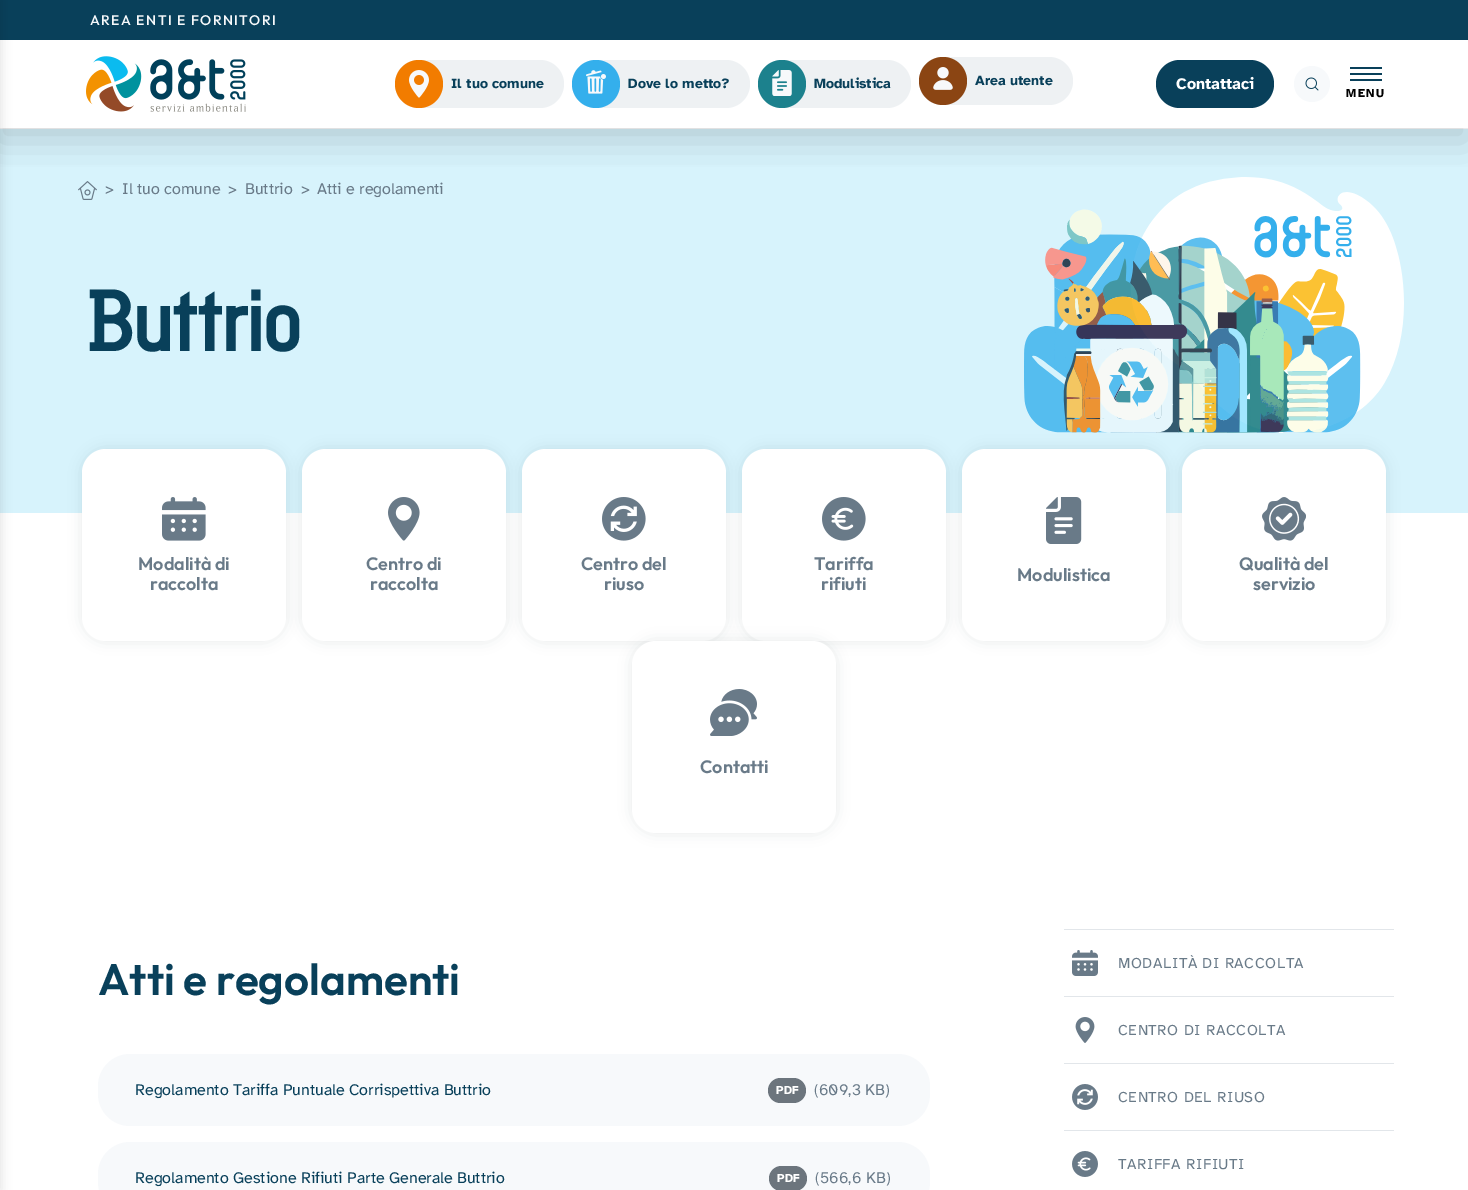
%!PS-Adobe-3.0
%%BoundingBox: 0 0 1468 1190
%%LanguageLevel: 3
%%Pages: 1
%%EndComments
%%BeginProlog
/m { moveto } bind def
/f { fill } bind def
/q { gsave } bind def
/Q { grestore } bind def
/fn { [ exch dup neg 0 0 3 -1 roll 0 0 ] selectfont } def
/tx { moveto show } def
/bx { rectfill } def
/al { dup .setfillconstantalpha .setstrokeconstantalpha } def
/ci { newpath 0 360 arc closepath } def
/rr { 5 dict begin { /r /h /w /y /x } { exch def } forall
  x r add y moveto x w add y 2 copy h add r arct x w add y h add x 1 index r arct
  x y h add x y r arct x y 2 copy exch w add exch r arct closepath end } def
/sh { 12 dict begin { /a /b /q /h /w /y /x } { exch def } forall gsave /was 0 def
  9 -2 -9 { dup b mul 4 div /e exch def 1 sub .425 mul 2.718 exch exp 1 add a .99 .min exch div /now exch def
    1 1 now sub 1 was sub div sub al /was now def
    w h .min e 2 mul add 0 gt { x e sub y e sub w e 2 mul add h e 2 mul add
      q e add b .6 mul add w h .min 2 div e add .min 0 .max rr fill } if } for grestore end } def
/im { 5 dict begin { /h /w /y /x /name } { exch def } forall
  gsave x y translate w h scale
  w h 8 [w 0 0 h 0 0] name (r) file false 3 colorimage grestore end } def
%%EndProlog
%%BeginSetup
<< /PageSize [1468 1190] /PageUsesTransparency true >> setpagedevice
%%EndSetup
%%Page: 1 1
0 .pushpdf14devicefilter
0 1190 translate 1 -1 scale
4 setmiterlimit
1 setgray
0 0 1468 1190 bx
0.843 0.953 0.988 setrgbcolor
0 129 1468 384 bx
(image6.raw) 78 181 19 19 im
(image7.raw) 1024 177 380 256 im
q
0 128 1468 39 rectclip
0.29 0.29 0.302 setrgbcolor
-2 11 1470 130 0 19 0.24 sh
Q
0.035 0.251 0.353 setrgbcolor
0 0 1468 40 bx
0 setgray
-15 0 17 1190 0 5 0.1 sh
/Outfit-Medium 14 fn
0.969 0.976 0.984 setrgbcolor
90 25 m 1.4 0 (AREA ENTI E FORNITORI) ashow
(image0.raw) 86 56 160 56 im
0.933 0.945 0.953 setrgbcolor
395 60 169 48 24 rr f
0.949 0.486 0 setrgbcolor
419 84 24 ci f
(image1.raw) 409 70 20 28 im
/AtkinsonHyperlegible-Bold 14 fn
0.035 0.251 0.353 setrgbcolor
(Il tuo comune) 451 88 tx
0.933 0.945 0.953 setrgbcolor
572 60 178 48 24 rr f
0.204 0.686 0.925 setrgbcolor
596 84 24 ci f
(image2.raw) 586 70 20 24 im
0.035 0.251 0.353 setrgbcolor
(Dove lo metto?) 628 88 tx
0.933 0.945 0.953 setrgbcolor
758 60 153 48 24 rr f
0.11 0.506 0.553 setrgbcolor
782 84 24 ci f
(image3.raw) 772 70 20 26 im
0.035 0.251 0.353 setrgbcolor
(Modulistica) 814 88 tx
0.933 0.945 0.953 setrgbcolor
919 57 154 48 24 rr f
0.545 0.271 0.075 setrgbcolor
943 81 24 ci f
(image4.raw) 933 67 20 23 im
0.035 0.251 0.353 setrgbcolor
(Area utente) 975 85 tx
1156 60 118 48 24 rr f
/AtkinsonHyperlegible-Bold 16 fn
1 setgray
(Contattaci) 1176 89 tx
0.969 0.976 0.984 setrgbcolor
1312 84 18 ci f
(image5.raw) 1305 77 14 14 im
0.035 0.251 0.353 setrgbcolor
1350 67 32 2 bx
1350 73 32 2 bx
1350 79 32 2 bx
/AtkinsonHyperlegible-Bold 12 fn
0 setgray
1346 97 m 1.4 0 (MENU) ashow
/AtkinsonHyperlegible-Regular 16 fn
0.412 0.478 0.533 setrgbcolor
(>) 105 194 tx
(Il tuo comune) 122 194 tx
(>) 228 194 tx
(Buttrio) 245 194 tx
(>) 301 194 tx
(Atti e regolamenti) 317 194 tx
/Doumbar-Medium 88 fn
0.035 0.251 0.353 setrgbcolor
86 351 m -2 0 (Buttrio) ashow
0.122 0.208 0.247 setrgbcolor
83 450 202 190 23 7 0.12 sh
1 setgray
82 449 204 192 24 rr f
(image8.raw) 162 497 44 44 im
/Outfit-SemiBold 18 fn
0.412 0.478 0.533 setrgbcolor
(Modalità di) 138 570 tx
(raccolta) 150 590 tx
0.122 0.208 0.247 setrgbcolor
303 450 202 190 23 7 0.12 sh
1 setgray
302 449 204 192 24 rr f
(image9.raw) 388 497 32 44 im
0.412 0.478 0.533 setrgbcolor
(Centro di) 366 570 tx
(raccolta) 370 590 tx
0.122 0.208 0.247 setrgbcolor
523 450 202 190 23 7 0.12 sh
1 setgray
522 449 204 192 24 rr f
(image10.raw) 602 497 44 44 im
0.412 0.478 0.533 setrgbcolor
(Centro del) 581 570 tx
(riuso) 604 590 tx
0.122 0.208 0.247 setrgbcolor
743 450 202 190 23 7 0.12 sh
1 setgray
742 449 204 192 24 rr f
(image11.raw) 822 497 44 44 im
0.412 0.478 0.533 setrgbcolor
(Tariffa) 814 570 tx
(rifiuti) 821 590 tx
0.122 0.208 0.247 setrgbcolor
963 450 202 190 23 7 0.12 sh
1 setgray
962 449 204 192 24 rr f
(image12.raw) 1046 497 36 47 im
0.412 0.478 0.533 setrgbcolor
(Modulistica) 1017 581 tx
0.122 0.208 0.247 setrgbcolor
1183 450 202 190 23 7 0.12 sh
1 setgray
1182 449 204 192 24 rr f
(image13.raw) 1262 497 44 44 im
0.412 0.478 0.533 setrgbcolor
(Qualità del) 1239 570 tx
(servizio) 1253 590 tx
0.122 0.208 0.247 setrgbcolor
633 642 202 190 23 7 0.12 sh
1 setgray
632 641 204 192 24 rr f
(image14.raw) 710 689 47 47 im
0.412 0.478 0.533 setrgbcolor
(Contatti) 700 773 tx
/Outfit-SemiBold 44 fn
0.035 0.251 0.353 setrgbcolor
(Atti e regolamenti) 98 995 tx
0.969 0.976 0.984 setrgbcolor
98 1054 832 72 32 rr f
/AtkinsonHyperlegible-Regular 16 fn
0.035 0.251 0.353 setrgbcolor
(Regolamento Tariffa Puntuale Corrispettiva Buttrio) 135 1095 tx
0.424 0.459 0.49 setrgbcolor
768 1078 38 25 12.5 rr f
/AtkinsonHyperlegible-Bold 12 fn
1 setgray
(PDF) 776 1094 tx
/AtkinsonHyperlegible-Regular 16 fn
0.412 0.478 0.533 setrgbcolor
(\(609,3 KB\)) 814 1095 tx
0.969 0.976 0.984 setrgbcolor
98 1142 832 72 32 rr f
0.035 0.251 0.353 setrgbcolor
(Regolamento Gestione Rifiuti Parte Generale Buttrio) 135 1183 tx
0.424 0.459 0.49 setrgbcolor
769 1166 38 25 12.5 rr f
/AtkinsonHyperlegible-Bold 12 fn
1 setgray
(PDF) 777 1182 tx
/AtkinsonHyperlegible-Regular 16 fn
0.412 0.478 0.533 setrgbcolor
(\(566,6 KB\)) 815 1183 tx
0.886 0.902 0.918 setrgbcolor
1064 929 330 1 bx
1064 996 330 1 bx
(image15.raw) 1072 950 26 26 im
/AtkinsonHyperlegible-Regular 15 fn
0.412 0.478 0.533 setrgbcolor
1118 968 m 0.6 0 (MODALITÀ DI RACCOLTA) ashow
0.886 0.902 0.918 setrgbcolor
1064 1063 330 1 bx
(image16.raw) 1075 1017 20 26 im
0.412 0.478 0.533 setrgbcolor
1118 1035 m 0.6 0 (CENTRO DI RACCOLTA) ashow
0.886 0.902 0.918 setrgbcolor
1064 1130 330 1 bx
(image17.raw) 1072 1084 26 26 im
0.412 0.478 0.533 setrgbcolor
1118 1102 m 0.6 0 (CENTRO DEL RIUSO) ashow
(image18.raw) 1072 1151 26 26 im
1118 1169 m 0.6 0 (TARIFFA RIFIUTI) ashow
.poppdf14devicefilter showpage
%%EOF
